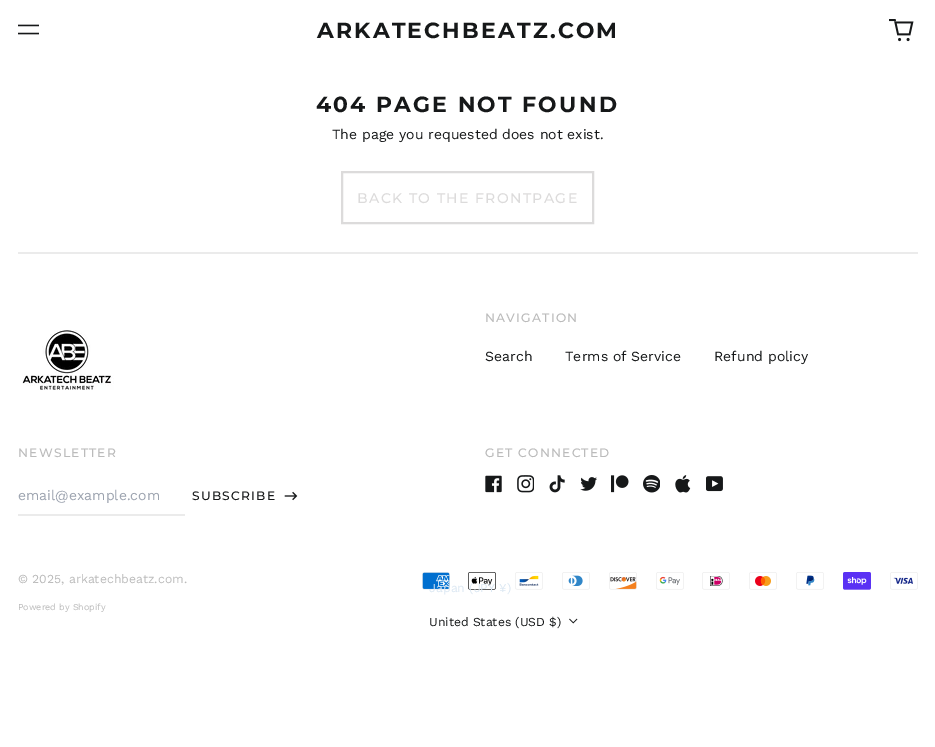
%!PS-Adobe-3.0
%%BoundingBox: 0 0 935 747
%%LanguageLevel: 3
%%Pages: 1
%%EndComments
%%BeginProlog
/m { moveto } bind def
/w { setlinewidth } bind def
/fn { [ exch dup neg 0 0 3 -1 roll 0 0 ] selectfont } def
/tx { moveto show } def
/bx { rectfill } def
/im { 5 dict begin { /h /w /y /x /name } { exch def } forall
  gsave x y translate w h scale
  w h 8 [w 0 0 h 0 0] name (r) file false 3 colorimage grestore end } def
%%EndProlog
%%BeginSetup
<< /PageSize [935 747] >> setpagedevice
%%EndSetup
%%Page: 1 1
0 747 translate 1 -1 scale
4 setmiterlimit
1 setgray
0 0 935 747 bx
(image0.raw) 18 24 21 11 im
/Montserrat-Bold 21.9 fn
0.086 0.094 0.098 setrgbcolor
317 38 m 2.2 0 (ARKATECHBEATZ.COM) ashow
(image1.raw) 889 19 25 23 im
316 112 m 2.2 0 (404 PAGE NOT FOUND) ashow
/WorkSans-Regular 14 fn
(The page you requested does not exist.) 332 139 tx
0.863 0.859 0.859 setrgbcolor
2 w
342 172 251 51 rectstroke
/Montserrat-Medium 14 fn
357 203 m 1.4 0 (BACK TO THE FRONTPAGE) ashow
0.922 setgray
18 252 900 2 bx
(image2.raw) 22 330 92 60 im
/Montserrat-Medium 12.25 fn
0.733 setgray
485 322 m 1.25 0 (NAVIGATION) ashow
/WorkSans-Regular 14 fn
0.086 0.094 0.098 setrgbcolor
(Search) 485 361 tx
(Terms of Service) 565 361 tx
(Refund policy) 714 361 tx
/Montserrat-Medium 12.25 fn
0.733 setgray
18 457 m 1.25 0 (NEWSLETTER) ashow
0.922 setgray
18 514 167 2 bx
/WorkSans-Regular 14 fn
0.612 0.639 0.686 setrgbcolor
(email@example.com) 18 500 tx
/Montserrat-Medium 12.25 fn
0.086 0.094 0.098 setrgbcolor
192 500 m 1.25 0 (SUBSCRIBE) ashow
(image3.raw) 284 491 14 10 im
0.733 setgray
485 457 m 1.25 0 (GET CONNECTED) ashow
(image4.raw) 485 475 17 18 im
(image5.raw) 517 475 17 18 im
(image6.raw) 549 475 16 18 im
(image7.raw) 580 477 17 14 im
(image8.raw) 611 475 18 18 im
(image9.raw) 643 475 17 18 im
(image10.raw) 675 475 16 18 im
(image11.raw) 706 476 17 16 im
/WorkSans-Regular 12.25 fn
(© 2025, arkatechbeatz.com.) 18 583 tx
/WorkSans-Regular 9 fn
(Powered by Shopify) 18 610 tx
(image12.raw) 422 572 28 18 im
(image13.raw) 468 572 28 18 im
(image14.raw) 515 572 28 18 im
(image15.raw) 562 572 28 18 im
(image16.raw) 609 572 28 18 im
(image17.raw) 656 572 28 18 im
(image18.raw) 702 572 28 18 im
(image19.raw) 749 572 28 18 im
(image20.raw) 796 572 28 18 im
(image21.raw) 843 572 28 18 im
(image22.raw) 890 572 28 18 im
/WorkSans-Regular 12.25 fn
0.863 0.91 0.953 setrgbcolor
(Japan \(JPY ¥\)) 429 592 tx
0.086 0.094 0.098 setrgbcolor
(United States \(USD $\)) 429 626 tx
(image23.raw) 569 618 9 6 im
showpage
%%EOF
